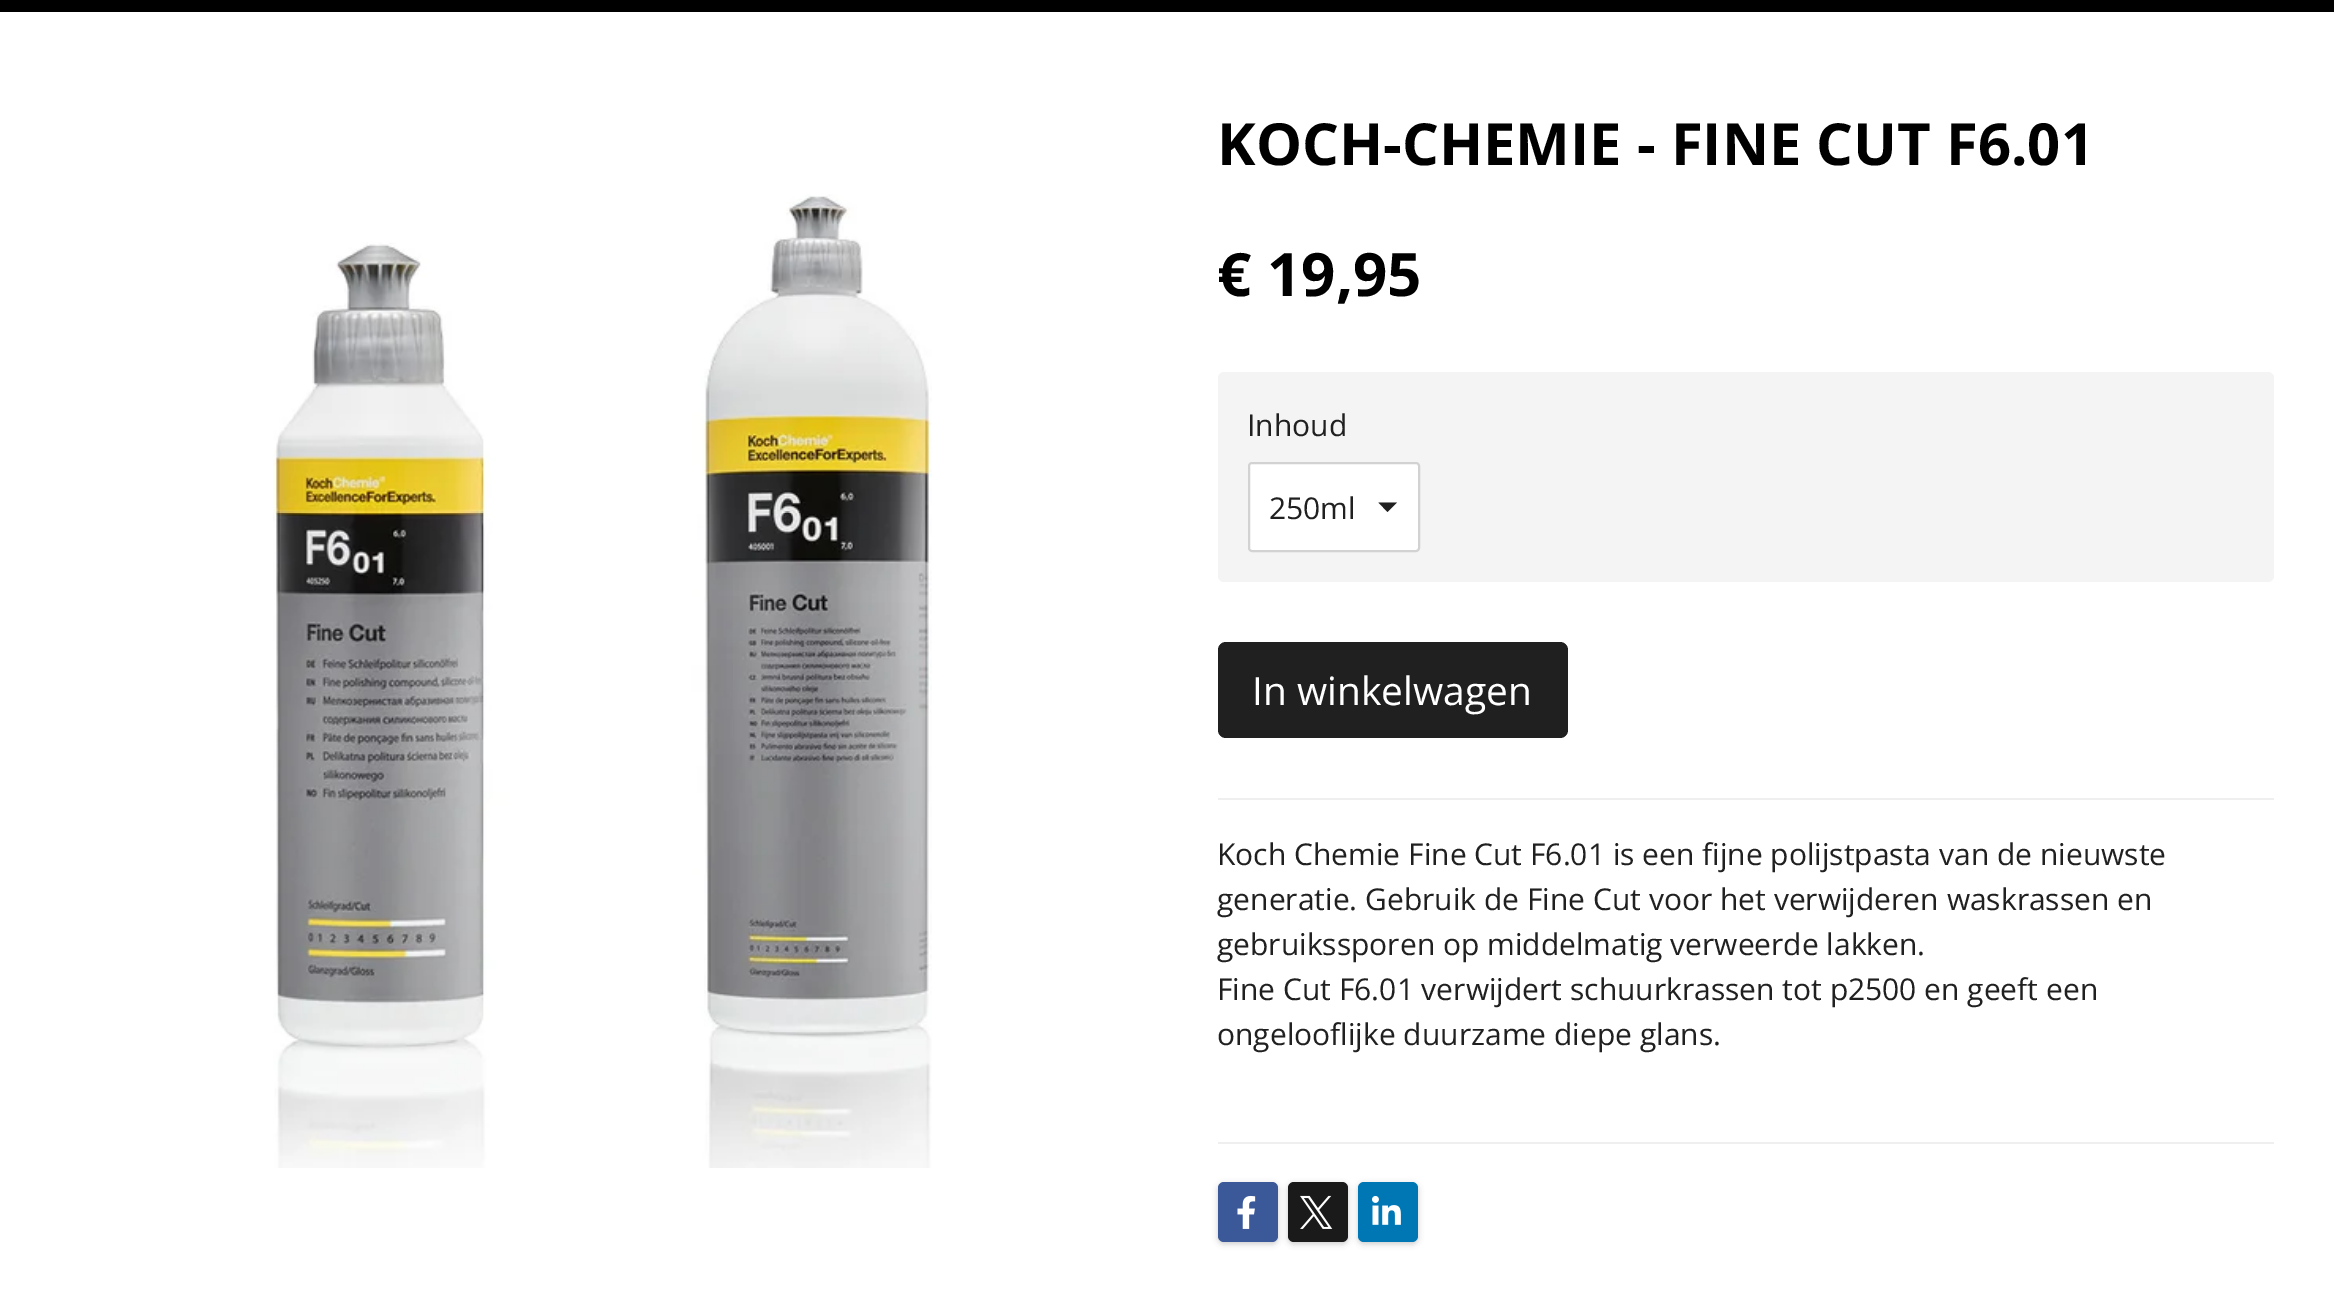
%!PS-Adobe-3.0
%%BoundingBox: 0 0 2334 1297
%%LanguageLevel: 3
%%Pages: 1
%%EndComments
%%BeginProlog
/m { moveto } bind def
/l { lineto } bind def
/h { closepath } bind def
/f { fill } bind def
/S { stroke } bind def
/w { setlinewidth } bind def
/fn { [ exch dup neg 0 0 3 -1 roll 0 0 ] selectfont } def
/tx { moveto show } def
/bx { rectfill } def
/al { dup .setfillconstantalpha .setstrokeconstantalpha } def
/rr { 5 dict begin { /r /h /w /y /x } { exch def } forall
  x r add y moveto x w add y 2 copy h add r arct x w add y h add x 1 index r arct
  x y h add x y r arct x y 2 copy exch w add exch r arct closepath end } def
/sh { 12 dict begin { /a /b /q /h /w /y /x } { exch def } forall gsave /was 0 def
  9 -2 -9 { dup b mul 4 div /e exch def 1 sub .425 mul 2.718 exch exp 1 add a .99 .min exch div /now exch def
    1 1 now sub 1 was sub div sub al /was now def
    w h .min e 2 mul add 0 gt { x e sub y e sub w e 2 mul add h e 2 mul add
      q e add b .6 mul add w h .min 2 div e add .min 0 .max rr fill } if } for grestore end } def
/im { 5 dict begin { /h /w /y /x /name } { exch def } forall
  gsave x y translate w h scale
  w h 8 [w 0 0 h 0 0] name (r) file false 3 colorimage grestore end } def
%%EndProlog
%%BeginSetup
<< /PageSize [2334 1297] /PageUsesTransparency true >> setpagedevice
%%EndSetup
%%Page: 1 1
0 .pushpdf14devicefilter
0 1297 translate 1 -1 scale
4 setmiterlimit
0 setgray
0 0 2334 1297 bx
1 setgray
0 12 2334 1285 bx
/OpenSans-Bold 58 fn
0 setgray
(KOCH-CHEMIE - FINE CUT F6.01) 1217 165 tx
(image0.raw) 273 194 659 974 im
/OpenSans-Bold 60 fn
(€ 19,95) 1217 296 tx
0.957 setgray
1218 372 1056 210 6 rr f
/OpenSans-Regular 30 fn
0.125 setgray
(Inhoud) 1247 436 tx
1 setgray
1248 462 172 90 4 rr f
0.125 setgray
1387.5 512 m 1378.5 502.5 l 1397 502.5 l h f
0.5 al
0.651 setgray
2 w
1249 463 170 88 3 rr S
1 al
0.125 setgray
(250ml) 1269 519 tx
1218 642 350 96 8 rr f
/OpenSans-Regular 39 fn
1 setgray
(In winkelwagen) 1252 705 tx
0.937 setgray
1218 798 1056 2 bx
/OpenSans-Regular 30 fn
0.125 setgray
(Koch Chemie Fine Cut F6.01 is een fijne polijstpasta van de nieuwste) 1217 865 tx
(generatie. Gebruik de Fine Cut voor het verwijderen waskrassen en) 1217 910 tx
(gebruikssporen op middelmatig verweerde lakken.) 1217 955 tx
(Fine Cut F6.01 verwijdert schuurkrassen tot p2500 en geeft een) 1217 1000 tx
(ongelooflijke duurzame diepe glans.) 1217 1045 tx
0.937 setgray
1218 1142 1056 2 bx
0 setgray
1218 1184 60 60 6 3 0.2 sh
0.231 0.349 0.596 setrgbcolor
1218 1182 60 60 6 rr f
(image1.raw) 1237 1195 19 34 im
0 setgray
1288 1184 60 60 6 3 0.2 sh
0.102 setgray
1288 1182 60 60 6 rr f
(image2.raw) 1300 1195 33 34 im
0 setgray
1358 1184 60 60 6 3 0.2 sh
0 0.467 0.71 setrgbcolor
1358 1182 60 60 6 rr f
(image3.raw) 1372 1196 29 29 im
.poppdf14devicefilter showpage
%%EOF
